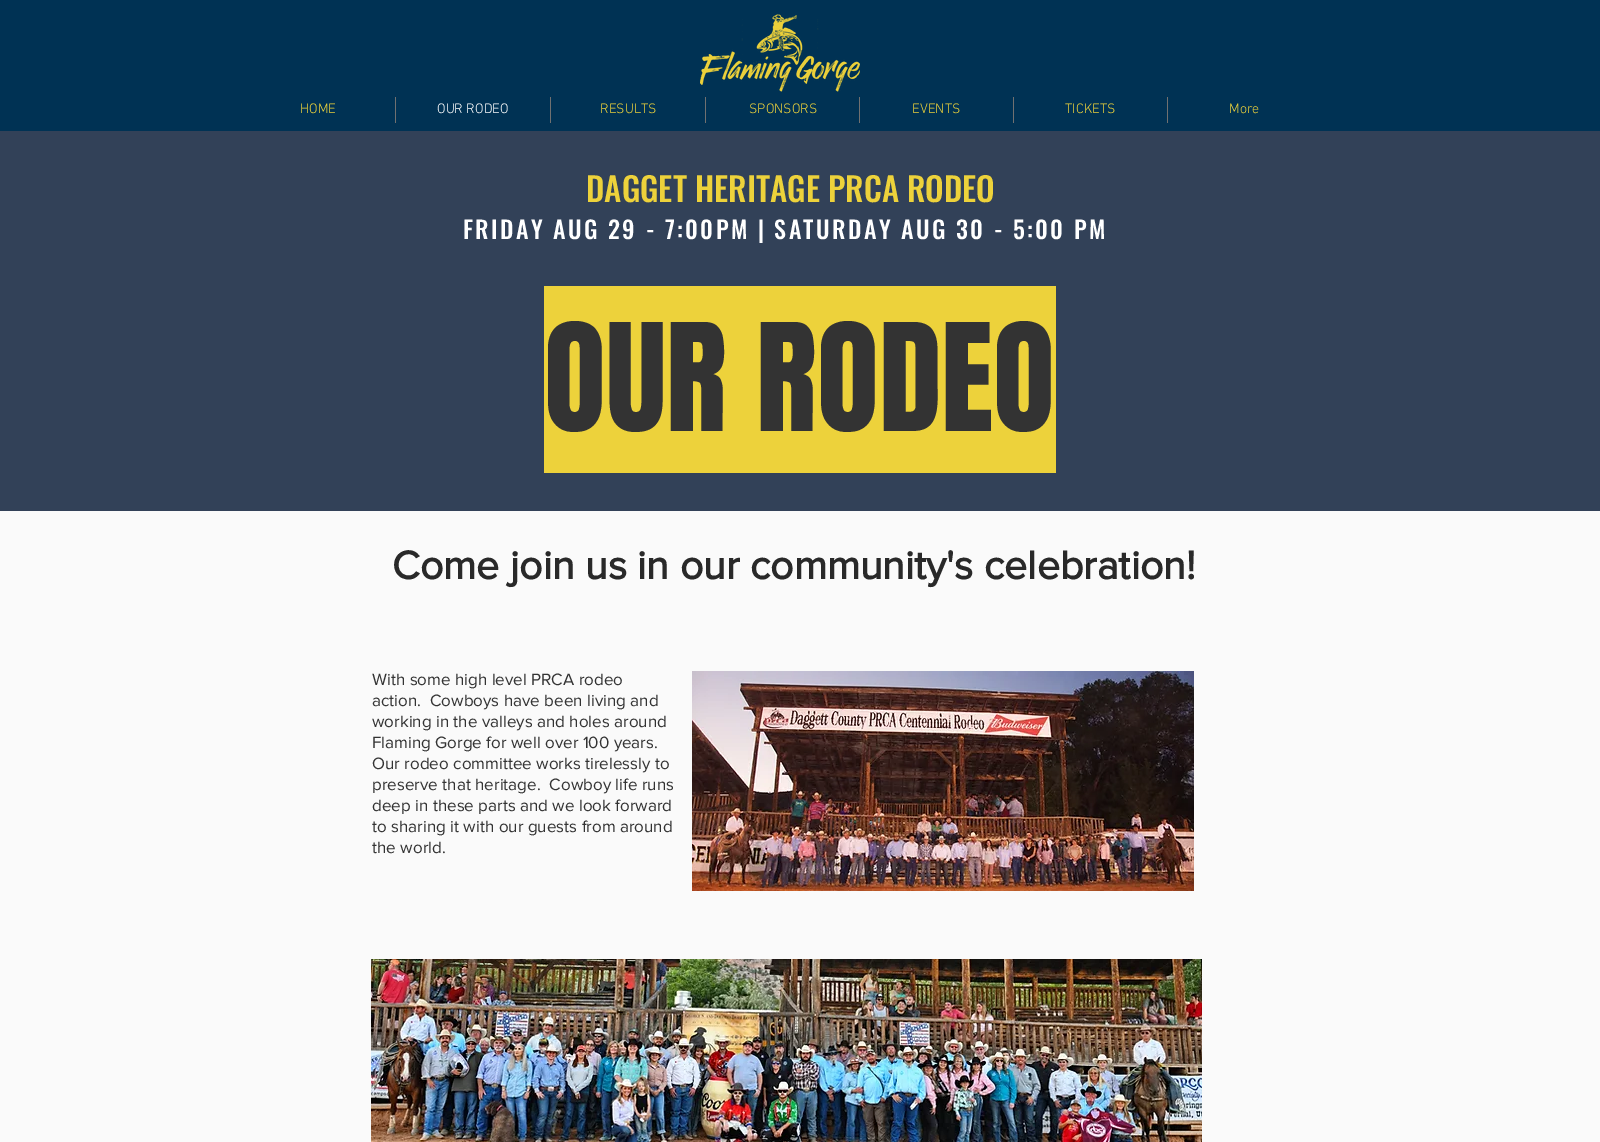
%!PS-Adobe-3.0
%%BoundingBox: 0 0 1600 1142
%%LanguageLevel: 3
%%Pages: 1
%%EndComments
%%BeginProlog
/m { moveto } bind def
/fn { [ exch dup neg 0 0 3 -1 roll 0 0 ] selectfont } def
/tx { moveto show } def
/bx { rectfill } def
/im { 5 dict begin { /h /w /y /x /name } { exch def } forall
  gsave x y translate w h scale
  w h 8 [w 0 0 h 0 0] name (r) file false 3 colorimage grestore end } def
%%EndProlog
%%BeginSetup
<< /PageSize [1600 1142] >> setpagedevice
%%EndSetup
%%Page: 1 1
0 1142 translate 1 -1 scale
4 setmiterlimit
0.196 0.255 0.345 setrgbcolor
0 0 1600 1142 bx
0 0.196 0.329 setrgbcolor
0 0 1600 131 bx
(image0.raw) 700 14 160 78 im
/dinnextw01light-Light 14 fn
0.929 0.824 0.231 setrgbcolor
(HOME) 300 113 tx
0.439 setgray
395 97 1 26 bx
1 setgray
(OUR RODEO) 437 113 tx
0.439 setgray
550 97 1 26 bx
0.929 0.824 0.231 setrgbcolor
(RESULTS) 600 113 tx
0.439 setgray
705 97 1 26 bx
0.929 0.824 0.231 setrgbcolor
(SPONSORS) 749 113 tx
0.439 setgray
859 97 1 26 bx
0.929 0.824 0.231 setrgbcolor
(EVENTS) 912 113 tx
0.439 setgray
1013 97 1 26 bx
0.929 0.824 0.231 setrgbcolor
(TICKETS) 1065 113 tx
0.439 setgray
1167 97 1 26 bx
0.929 0.824 0.231 setrgbcolor
(More) 1229 113 tx
/Oswald-Medium 33 fn
(DAGGET HERITAGE PRCA RODEO) 586 202 tx
/Oswald-Medium 24 fn
1 setgray
463 239 m 2.4 0 (FRIDAY AUG 29 - 7:00PM | SATURDAY AUG 30 - 5:00 PM) ashow
0.929 0.824 0.231 setrgbcolor
544 286 512 187 bx
/Anton-Regular 127 fn
0.2 setgray
(OUR RODEO) 544 431 tx
0.98 setgray
0 511 1600 631 bx
/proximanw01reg-Bold 41 fn
0.161 setgray
(Come join us in our community's celebration!) 392 579 tx
/proximanw01reg-Regular 17 fn
0.2 setgray
(With some high level PRCA rodeo) 372 685 tx
(action.  Cowboys have been living and) 372 706 tx
(working in the valleys and holes around) 372 727 tx
(Flaming Gorge for well over 100 years.) 372 748 tx
(Our rodeo committee works tirelessly to) 372 769 tx
(preserve that heritage.  Cowboy life runs) 372 790 tx
(deep in these parts and we look forward) 372 811 tx
(to sharing it with our guests from around) 372 832 tx
(the world.) 372 853 tx
(image1.raw) 692 671 502 220 im
(image2.raw) 371 959 831 183 im
showpage
%%EOF
